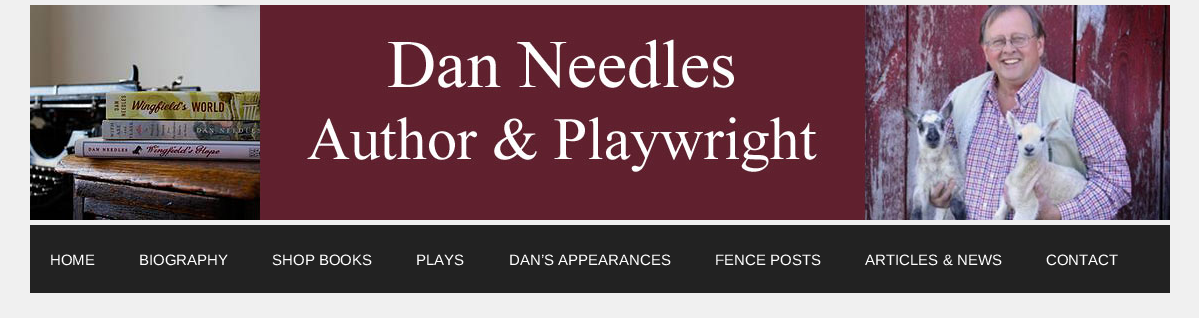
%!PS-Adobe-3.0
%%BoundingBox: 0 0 1199 318
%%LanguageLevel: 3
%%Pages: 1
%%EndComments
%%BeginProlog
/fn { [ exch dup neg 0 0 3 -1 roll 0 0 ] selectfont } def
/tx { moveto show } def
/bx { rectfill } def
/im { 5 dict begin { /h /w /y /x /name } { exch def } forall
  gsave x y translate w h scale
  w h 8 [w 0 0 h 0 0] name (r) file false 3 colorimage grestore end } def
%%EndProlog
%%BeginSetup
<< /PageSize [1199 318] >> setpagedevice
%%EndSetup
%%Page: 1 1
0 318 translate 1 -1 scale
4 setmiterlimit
0.941 setgray
0 0 1199 318 bx
0.133 setgray
30 225 1140 2 bx
(image0.raw) 30 5 1140 215 im
30 227 1140 66 bx
/LiberationSans-Regular 15 fn
1 setgray
(HOME) 50 265 tx
(BIOGRAPHY) 139 265 tx
(SHOP BOOKS) 272 265 tx
(PLAYS) 416 265 tx
(DAN’S APPEARANCES) 509 265 tx
(FENCE POSTS) 715 265 tx
(ARTICLES & NEWS) 865 265 tx
(CONTACT) 1046 265 tx
showpage
%%EOF
